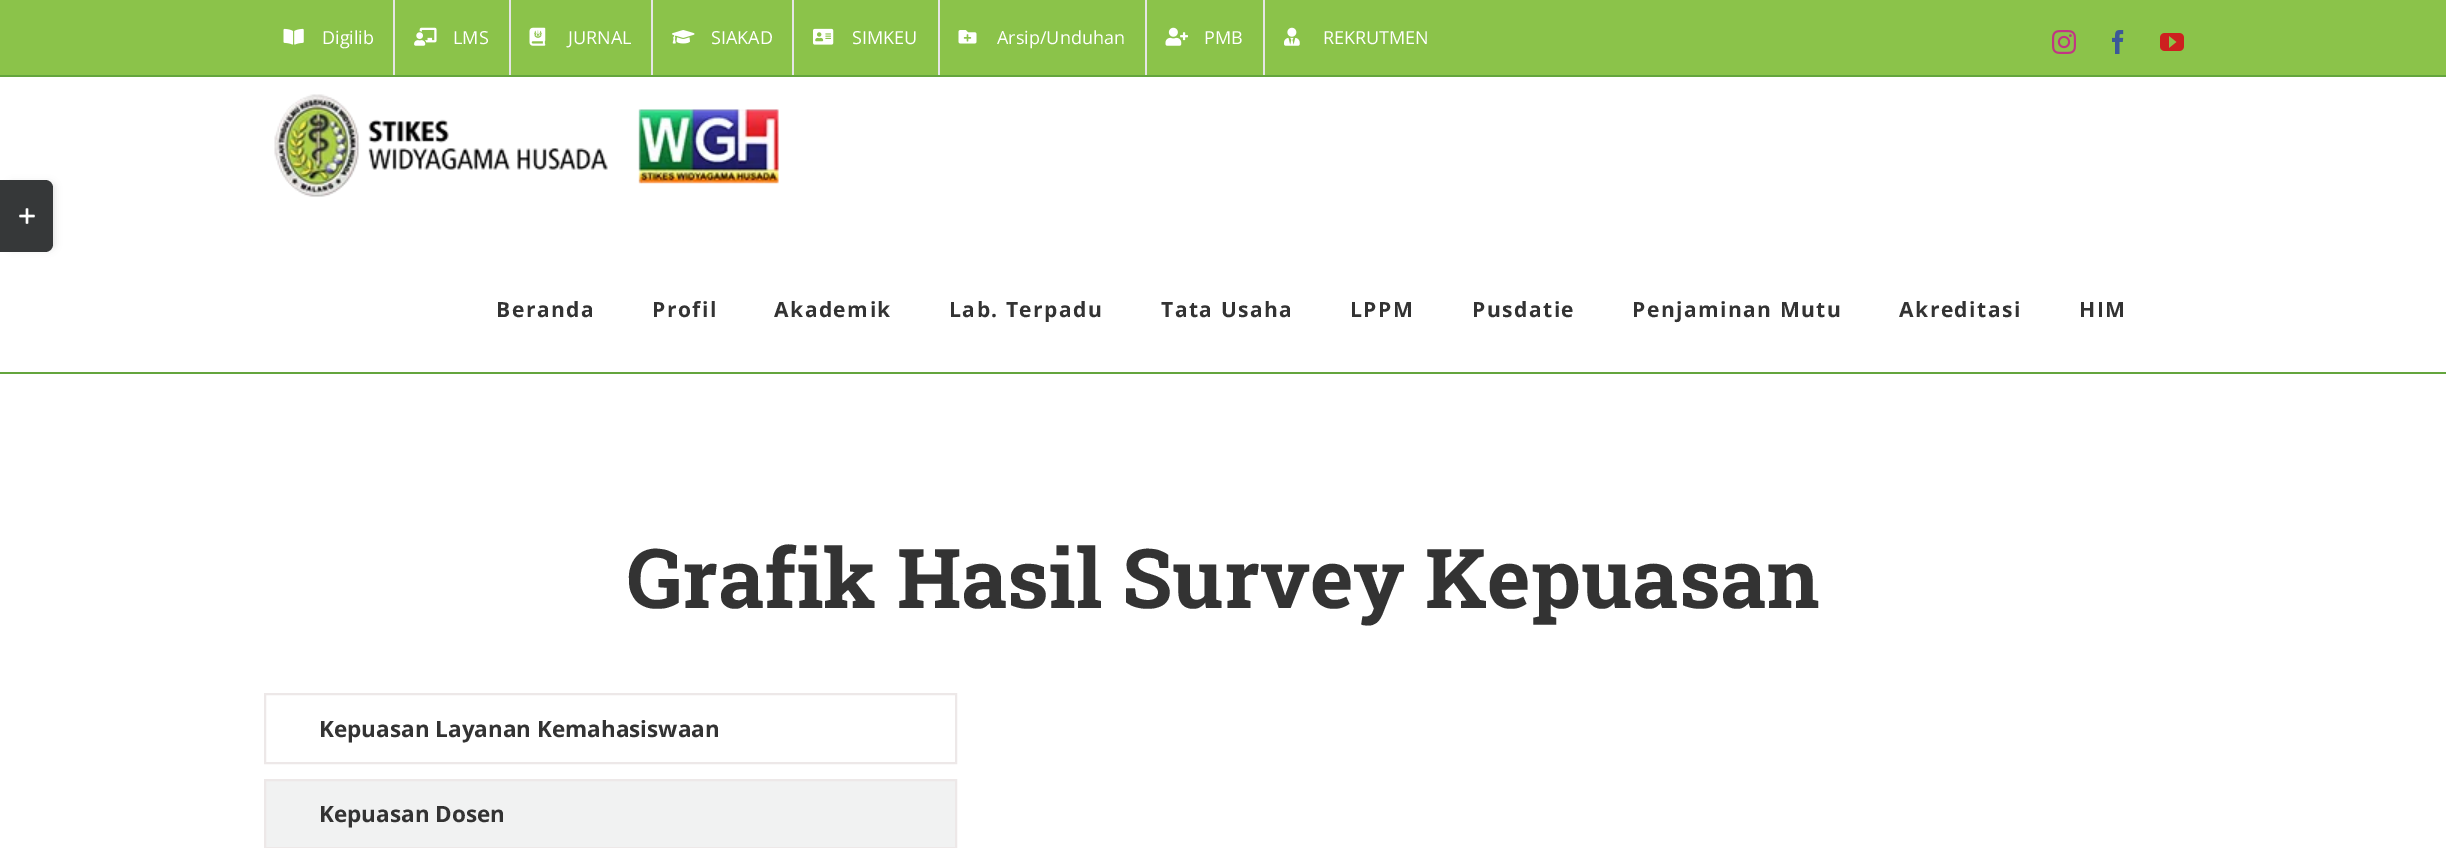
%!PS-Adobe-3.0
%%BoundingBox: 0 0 2446 848
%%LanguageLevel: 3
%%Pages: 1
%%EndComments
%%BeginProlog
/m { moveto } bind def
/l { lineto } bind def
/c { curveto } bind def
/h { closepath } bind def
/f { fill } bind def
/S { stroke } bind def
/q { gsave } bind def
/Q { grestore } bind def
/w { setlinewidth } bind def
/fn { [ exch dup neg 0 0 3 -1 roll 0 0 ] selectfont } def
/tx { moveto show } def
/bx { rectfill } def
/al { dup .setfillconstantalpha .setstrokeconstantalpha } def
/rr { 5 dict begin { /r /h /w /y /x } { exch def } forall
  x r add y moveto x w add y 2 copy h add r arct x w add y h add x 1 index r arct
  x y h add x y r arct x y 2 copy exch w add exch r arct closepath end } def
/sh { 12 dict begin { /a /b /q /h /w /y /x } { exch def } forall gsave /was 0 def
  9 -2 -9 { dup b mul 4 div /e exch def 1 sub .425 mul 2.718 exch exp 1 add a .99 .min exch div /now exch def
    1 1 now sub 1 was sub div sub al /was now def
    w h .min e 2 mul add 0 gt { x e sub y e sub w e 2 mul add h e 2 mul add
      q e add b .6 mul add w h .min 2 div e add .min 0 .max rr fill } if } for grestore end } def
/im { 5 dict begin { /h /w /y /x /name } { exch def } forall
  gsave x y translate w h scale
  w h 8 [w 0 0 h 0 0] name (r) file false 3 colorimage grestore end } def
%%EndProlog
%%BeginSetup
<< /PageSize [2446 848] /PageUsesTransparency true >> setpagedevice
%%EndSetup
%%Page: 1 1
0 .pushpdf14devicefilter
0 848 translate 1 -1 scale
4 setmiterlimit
1 setgray
0 0 2446 848 bx
0 setgray
8 183 46 66 5 4 0.14 sh
0.212 0.22 0.224 setrgbcolor
0 180 m 45 180 l 49.5 180 53 183.5 53 188 c 53 244 l 53 248.5 49.5 252 45 252 c 0 252 l h f
(image0.raw) 19 208 16 16 im
0.545 0.765 0.29 setrgbcolor
0 0 2446 75 bx
0.392 0.647 0.243 setrgbcolor
0 75 2446 2 bx
(image1.raw) 283 28 21 17 im
/OpenSans-Regular 18 fn
1 setgray
(Digilib) 322 44 tx
0.898 setgray
393 0 2 75 bx
(image2.raw) 414 27 23 19 im
1 setgray
(LMS) 453 44 tx
0.898 setgray
509 0 2 75 bx
(image3.raw) 529 27 17 19 im
1 setgray
(JURNAL) 568 44 tx
0.898 setgray
651 0 2 75 bx
(image4.raw) 672 30 23 14 im
1 setgray
(SIAKAD) 711 44 tx
0.898 setgray
792 0 2 75 bx
(image5.raw) 813 28 21 17 im
1 setgray
(SIMKEU) 852 44 tx
0.898 setgray
938 0 2 75 bx
(image6.raw) 958 30 19 14 im
1 setgray
(Arsip/Unduhan) 997 44 tx
0.898 setgray
1145 0 2 75 bx
(image7.raw) 1165 27 23 19 im
1 setgray
(PMB) 1204 44 tx
0.898 setgray
1263 0 2 75 bx
(image8.raw) 1284 27 16 19 im
1 setgray
(REKRUTMEN) 1323 44 tx
(image9.raw) 2052 30 24 24 im
(image10.raw) 2112 30 12 24 im
(image11.raw) 2160 33 24 18 im
0.392 0.647 0.243 setrgbcolor
0 372 2446 2 bx
(image12.raw) 274 94 505 103 im
/OpenSans-Bold 21 fn
0.2 setgray
496 317 m 1.5 0 (Beranda) ashow
652 317 m 1.5 0 (Profil) ashow
774 317 m 1.5 0 (Akademik) ashow
949 317 m 1.5 0 (Lab. Terpadu) ashow
1161 317 m 1.5 0 (Tata Usaha) ashow
1350 317 m 1.5 0 (LPPM) ashow
1472 317 m 1.5 0 (Pusdatie) ashow
1632 317 m 1.5 0 (Penjaminan Mutu) ashow
1899 317 m 1.5 0 (Akreditasi) ashow
2079 317 m 1.5 0 (HIM) ashow
/RobotoSlab-Bold 82.5 fn
(Grafik Hasil Survey Kepuasan) 627 608 tx
0.929 0.91 0.91 setrgbcolor
2 w
265 694 691 69 rectstroke
/OpenSans-Bold 22.5 fn
0.2 setgray
(Kepuasan Layanan Kemahasiswaan) 319 737 tx
0.945 0.949 0.949 setrgbcolor
265 780 m 956 780 l 956 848 l 265 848 l h q f Q
0.929 0.91 0.91 setrgbcolor
S
0.2 setgray
(Kepuasan Dosen) 319 822 tx
.poppdf14devicefilter showpage
%%EOF
